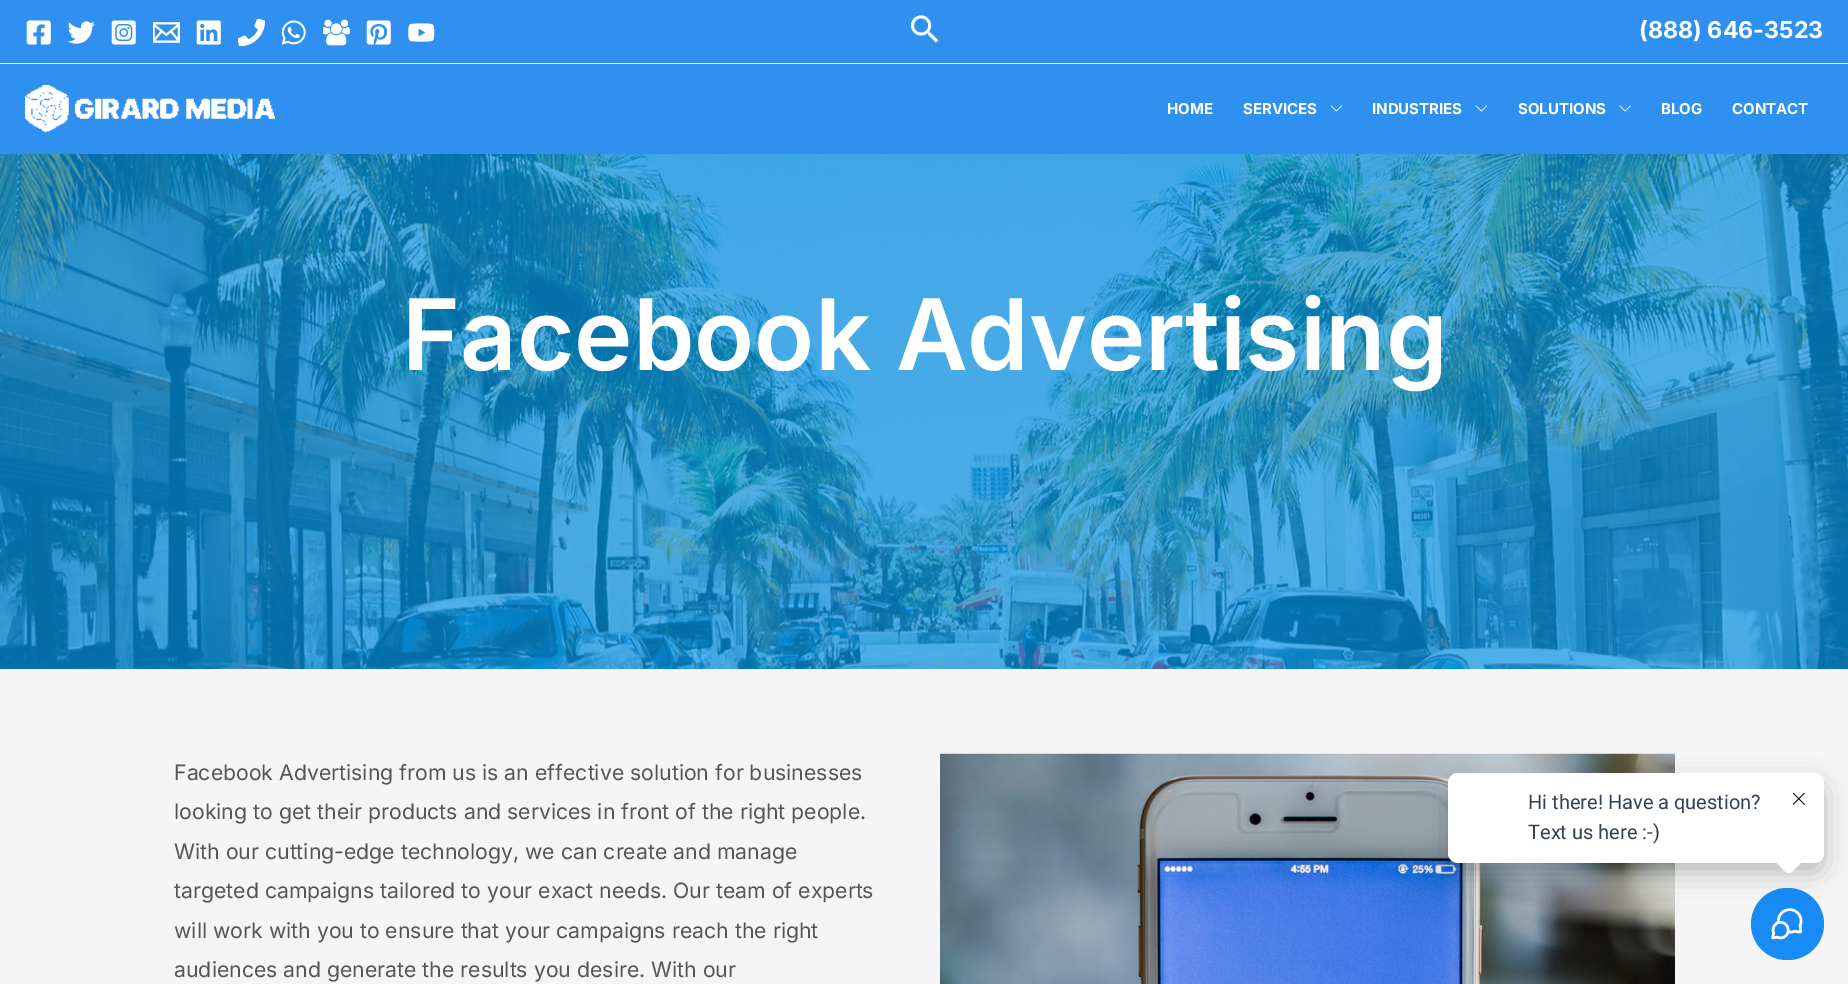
%!PS-Adobe-3.0
%%BoundingBox: 0 0 1848 984
%%LanguageLevel: 3
%%Pages: 1
%%EndComments
%%BeginProlog
/m { moveto } bind def
/l { lineto } bind def
/c { curveto } bind def
/h { closepath } bind def
/f { fill } bind def
/fn { [ exch dup neg 0 0 3 -1 roll 0 0 ] selectfont } def
/tx { moveto show } def
/bx { rectfill } def
/al { dup .setfillconstantalpha .setstrokeconstantalpha } def
/rr { 5 dict begin { /r /h /w /y /x } { exch def } forall
  x r add y moveto x w add y 2 copy h add r arct x w add y h add x 1 index r arct
  x y h add x y r arct x y 2 copy exch w add exch r arct closepath end } def
/sh { 12 dict begin { /a /b /q /h /w /y /x } { exch def } forall gsave /was 0 def
  9 -2 -9 { dup b mul 4 div /e exch def 1 sub .425 mul 2.718 exch exp 1 add a .99 .min exch div /now exch def
    1 1 now sub 1 was sub div sub al /was now def
    w h .min e 2 mul add 0 gt { x e sub y e sub w e 2 mul add h e 2 mul add
      q e add b .6 mul add w h .min 2 div e add .min 0 .max rr fill } if } for grestore end } def
/im { 5 dict begin { /h /w /y /x /name } { exch def } forall
  gsave x y translate w h scale
  w h 8 [w 0 0 h 0 0] name (r) file false 3 colorimage grestore end } def
%%EndProlog
%%BeginSetup
<< /PageSize [1848 984] /PageUsesTransparency true >> setpagedevice
%%EndSetup
%%Page: 1 1
0 .pushpdf14devicefilter
0 984 translate 1 -1 scale
4 setmiterlimit
1 setgray
0 0 1848 984 bx
0.188 0.565 0.941 setrgbcolor
0 0 1848 63 bx
(image0.raw) 26 20 25 25 im
(image1.raw) 68 21 27 23 im
(image2.raw) 111 20 25 25 im
(image3.raw) 153 22 27 21 im
(image4.raw) 196 20 25 25 im
(image5.raw) 238 19 27 27 im
(image6.raw) 281 20 25 25 im
(image7.raw) 323 19 27 27 im
(image8.raw) 366 20 25 25 im
(image9.raw) 408 23 27 19 im
(image10.raw) 910 15 29 28 im
/Inter-Bold 23.25 fn
1 setgray
(\(888\) 646-3523) 1639 38 tx
0.188 0.565 0.941 setrgbcolor
0 64 1848 90 bx
(image11.raw) 25 85 250 48 im
/Inter-Bold 15 fn
1 setgray
(HOME) 1167 114 tx
(SERVICES) 1243 114 tx
(image12.raw) 1330 105 13 7 im
(INDUSTRIES) 1372 114 tx
(image12.raw) 1475 105 13 7 im
(SOLUTIONS) 1518 114 tx
(image13.raw) 1619 105 12 7 im
(BLOG) 1661 114 tx
(CONTACT) 1732 114 tx
(image14.raw) 0 154 1848 515 im
/Inter-SemiBold 98.75 fn
(Facebook Advertising) 402 370 tx
0.961 setgray
0 669 1848 315 bx
/Inter-Regular 21.25 fn
0.333 setgray
(Facebook Advertising from us is an effective solution for businesses) 174 780 tx
(looking to get their products and services in front of the right people.) 174 819 tx
(With our cutting-edge technology, we can create and manage) 174 859 tx
(targeted campaigns tailored to your exact needs. Our team of experts) 174 898 tx
(will work with you to ensure that your campaigns reach the right) 174 938 tx
(audiences and generate the results you desire. With our) 174 977 tx
(image15.raw) 940 753 735 231 im
0.094 0.545 0.965 setrgbcolor
1751 888 73 72 36 rr f
(image17.raw) 1771 908 32 32 im
0 setgray
1448 783 376 90 10 12.5 0.24 sh
1 setgray
1448 773 376 90 10 rr f
/Roboto-Regular 20 fn
0.204 0.251 0.329 setrgbcolor
(Hi there! Have a question?) 1528 809 tx
(Text us here :-\)) 1528 839 tx
1 setgray
1792.5 843.5 m 1803 854 l 1805 856 1805 859 1803 861 c 1792.5 871.5 l 1790.5 873.5 1787 873.5 1785 871.5 c 1774.5 861 l 1772.5 859 1772.5 856 1774.5 854 c 1785 843.5 l 1787 841.5 1790.5 841.5 1792.5 843.5 c h f
(image16.raw) 1793 793 12 12 im
.poppdf14devicefilter showpage
%%EOF
